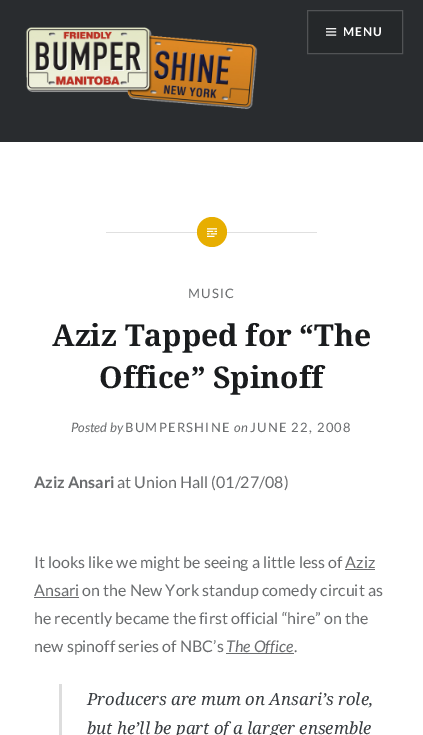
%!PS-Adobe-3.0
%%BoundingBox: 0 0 423 735
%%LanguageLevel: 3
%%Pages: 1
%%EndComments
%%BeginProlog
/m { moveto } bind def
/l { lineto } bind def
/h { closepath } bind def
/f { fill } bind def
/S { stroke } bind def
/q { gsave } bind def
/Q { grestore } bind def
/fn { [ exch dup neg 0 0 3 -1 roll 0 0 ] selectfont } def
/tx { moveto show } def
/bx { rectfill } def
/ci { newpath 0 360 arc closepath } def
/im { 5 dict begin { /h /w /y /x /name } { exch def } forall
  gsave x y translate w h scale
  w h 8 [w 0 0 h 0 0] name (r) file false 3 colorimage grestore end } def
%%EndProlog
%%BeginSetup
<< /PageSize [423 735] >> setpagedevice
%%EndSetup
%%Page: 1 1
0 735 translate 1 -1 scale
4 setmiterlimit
1 setgray
0 0 423 735 bx
0.161 0.173 0.184 setrgbcolor
0 0 423 142 bx
(image0.raw) 25 27 233 83 im
0.145 0.157 0.165 setrgbcolor
307.5 10.5 m 402.5 10.5 l 402.5 53.5 l 307.5 53.5 l h q f Q
0.318 0.325 0.333 setrgbcolor
S
(image1.raw) 326 28 11 8 im
/Lato-Bold 12 fn
1 setgray
343 36 m 1 0 (MENU) ashow
0.878 setgray
106 232 211 1 bx
0.906 0.682 0.004 setrgbcolor
212 232 15 ci f
(image2.raw) 207 228 10 9 im
/Lato-Regular 13 fn
0.416 0.424 0.431 setrgbcolor
188 298 m 1.25 0 (MUSIC) ashow
/NotoSerif-Bold 30 fn
0.102 0.11 0.118 setrgbcolor
(Aziz Tapped for “The) 52 346 tx
(Office” Spinoff) 99 388 tx
/Lato-Italic 13 fn
0.416 0.424 0.431 setrgbcolor
(Posted by) 71 432 tx
/Lato-Regular 13 fn
125 432 m 1.25 0 (BUMPERSHINE) ashow
/Lato-Italic 13 fn
(on) 234 432 tx
/Lato-Regular 13 fn
250 432 m 1.25 0 (JUNE 22, 2008) ashow
/Lato-Bold 16 fn
(Aziz Ansari) 34 488 tx
/Lato-Regular 16 fn
(at Union Hall \(01/27/08\)) 117 488 tx
(It looks like we might be seeing a little less of Aziz) 34 568 tx
34 597 45 1 bx
(Ansari on the New York standup comedy circuit as) 34 596 tx
345 569 30 1 bx
(he recently became the first official “hire” on the) 34 624 tx
(new spinoff series of NBC’s) 34 652 tx
226 653 68 1 bx
/Lato-Italic 16 fn
(The Office) 226 652 tx
/Lato-Regular 16 fn
(.) 294 652 tx
0.867 setgray
59 684 3 51 bx
/NotoSerif-Italic 16.75 fn
0.224 0.239 0.255 setrgbcolor
(Producers are mum on Ansari’s role,) 87 705 tx
(but he’ll be part of a larger ensemble) 87 734 tx
showpage
%%EOF
